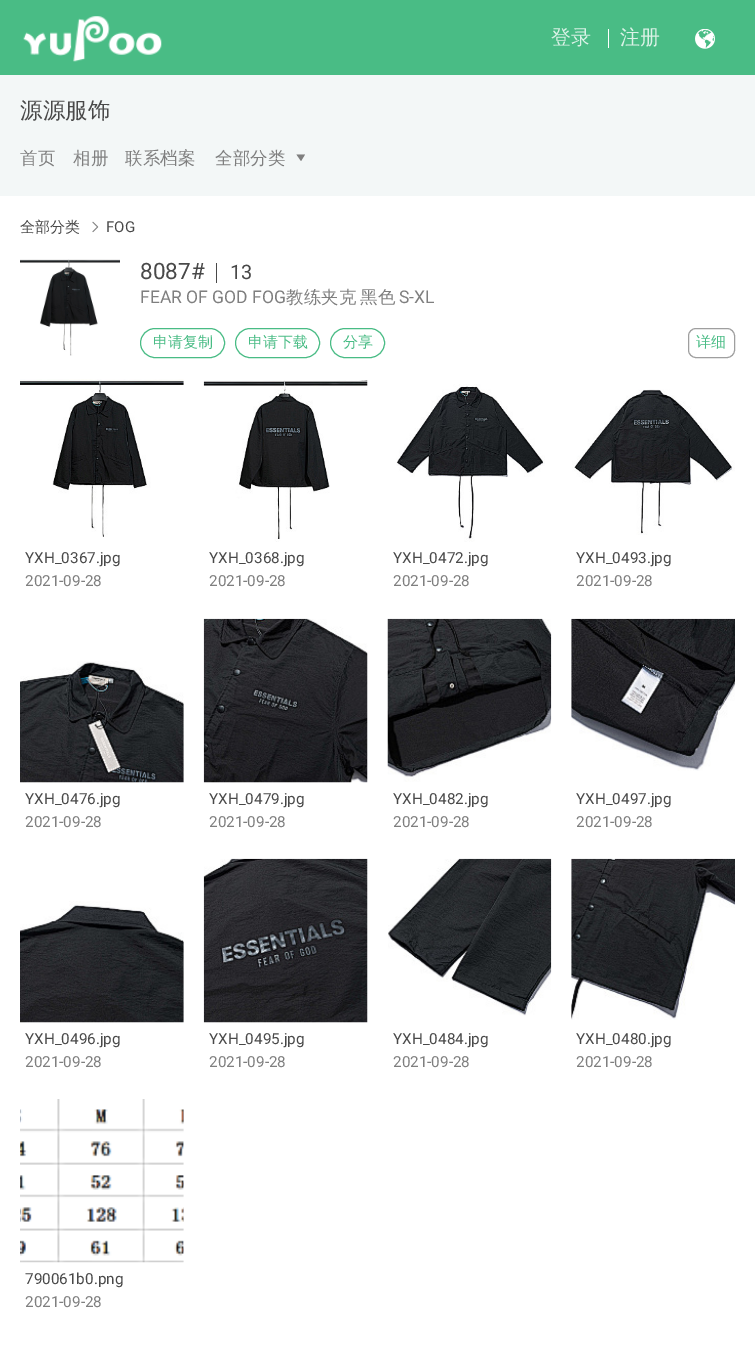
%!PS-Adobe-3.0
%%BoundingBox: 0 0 755 1356
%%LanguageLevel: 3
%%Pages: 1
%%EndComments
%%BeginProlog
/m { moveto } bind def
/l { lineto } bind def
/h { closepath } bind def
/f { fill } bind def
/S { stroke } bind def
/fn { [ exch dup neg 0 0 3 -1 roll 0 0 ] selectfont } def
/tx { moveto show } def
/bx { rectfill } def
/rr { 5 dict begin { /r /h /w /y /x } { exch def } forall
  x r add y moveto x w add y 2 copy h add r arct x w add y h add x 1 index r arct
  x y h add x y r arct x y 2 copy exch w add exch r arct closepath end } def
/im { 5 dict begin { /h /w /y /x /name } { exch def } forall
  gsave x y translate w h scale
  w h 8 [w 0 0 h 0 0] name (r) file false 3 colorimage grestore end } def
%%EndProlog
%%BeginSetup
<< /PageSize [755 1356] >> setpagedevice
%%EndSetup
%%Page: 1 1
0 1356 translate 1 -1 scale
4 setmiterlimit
1 setgray
0 0 755 1356 bx
0.286 0.737 0.522 setrgbcolor
0 0 755 75 bx
(image0.raw) 23 16 139 46 im
/WenQuanYiZenHei-Medium 20 fn
0.859 0.949 0.906 setrgbcolor
(登录) 551 44 tx
1 setgray
608 29 1 19 bx
0.859 0.949 0.906 setrgbcolor
(注册) 620 44 tx
(image1.raw) 695 29 20 20 im
0.953 0.969 0.969 setrgbcolor
0 75 755 121 bx
/WenQuanYiZenHei-Medium 22.5 fn
0.286 setgray
(源源服饰) 20 118 tx
/WenQuanYiZenHei-Medium 17.5 fn
0.498 setgray
(首页) 20 164 tx
(相册) 73 164 tx
(联系档案) 125 164 tx
(全部分类) 215 164 tx
301 161 m 296.5 154.5 l 305 154.5 l h f
/WenQuanYiZenHei-Medium 15 fn
0.286 setgray
(全部分类) 20 232 tx
(image2.raw) 92 221 7 12 im
/Roboto-Regular 15 fn
(FOG) 106 232 tx
(image3.raw) 20 259 100 97 im
/Roboto-Regular 22.5 fn
(8087#) 140 279 tx
216 263 1 20 bx
/Roboto-Regular 20 fn
(13) 230 279 tx
/Roboto-Regular 17.5 fn
0.498 setgray
(FEAR OF GOD FOG) 140 303 tx
/WenQuanYiZenHei-Medium 17.5 fn
(教练夹克) 286 303 tx
(黑色) 360 303 tx
/Roboto-Regular 17.5 fn
(S-XL) 399 303 tx
0.286 0.737 0.522 setrgbcolor
140.5 328.5 84 29 14.5 rr S
/WenQuanYiZenHei-Medium 15 fn
(申请复制) 153 347 tx
235.5 328.5 84 29 14.5 rr S
(申请下载) 248 347 tx
330.5 328.5 54 29 14.5 rr S
(分享) 343 347 tx
0.624 setgray
688.5 328.5 46 29 7.5 rr S
0.286 0.737 0.522 setrgbcolor
(详细) 696 347 tx
(image4.raw) 20 379 164 158 im
/Roboto-Regular 15.25 fn
0.286 setgray
(YXH_0367.jpg) 25 563 tx
0.498 setgray
(2021-09-28) 25 586 tx
(image5.raw) 203 380 165 162 im
0.286 setgray
(YXH_0368.jpg) 209 563 tx
0.498 setgray
(2021-09-28) 209 586 tx
(image6.raw) 396 384 149 158 im
0.286 setgray
(YXH_0472.jpg) 393 563 tx
0.498 setgray
(2021-09-28) 393 586 tx
(image7.raw) 572 389 163 146 im
0.286 setgray
(YXH_0493.jpg) 576 563 tx
0.498 setgray
(2021-09-28) 576 586 tx
(image8.raw) 20 661 164 122 im
0.286 setgray
(YXH_0476.jpg) 25 804 tx
0.498 setgray
(2021-09-28) 25 827 tx
(image9.raw) 203 618 165 165 im
0.286 setgray
(YXH_0479.jpg) 209 804 tx
0.498 setgray
(2021-09-28) 209 827 tx
(image10.raw) 387 618 165 164 im
0.286 setgray
(YXH_0482.jpg) 393 804 tx
0.498 setgray
(2021-09-28) 393 827 tx
(image11.raw) 571 618 164 153 im
0.286 setgray
(YXH_0497.jpg) 576 804 tx
0.498 setgray
(2021-09-28) 576 827 tx
(image12.raw) 20 901 164 122 im
0.286 setgray
(YXH_0496.jpg) 25 1044 tx
0.498 setgray
(2021-09-28) 25 1067 tx
(image13.raw) 203 858 165 165 im
0.286 setgray
(YXH_0495.jpg) 209 1044 tx
0.498 setgray
(2021-09-28) 209 1067 tx
(image14.raw) 388 858 164 158 im
0.286 setgray
(YXH_0484.jpg) 393 1044 tx
0.498 setgray
(2021-09-28) 393 1067 tx
(image15.raw) 571 858 164 162 im
0.286 setgray
(YXH_0480.jpg) 576 1044 tx
0.498 setgray
(2021-09-28) 576 1067 tx
(image16.raw) 20 1099 164 164 im
0.286 setgray
(790061b0.png) 25 1284 tx
0.498 setgray
(2021-09-28) 25 1307 tx
showpage
%%EOF
